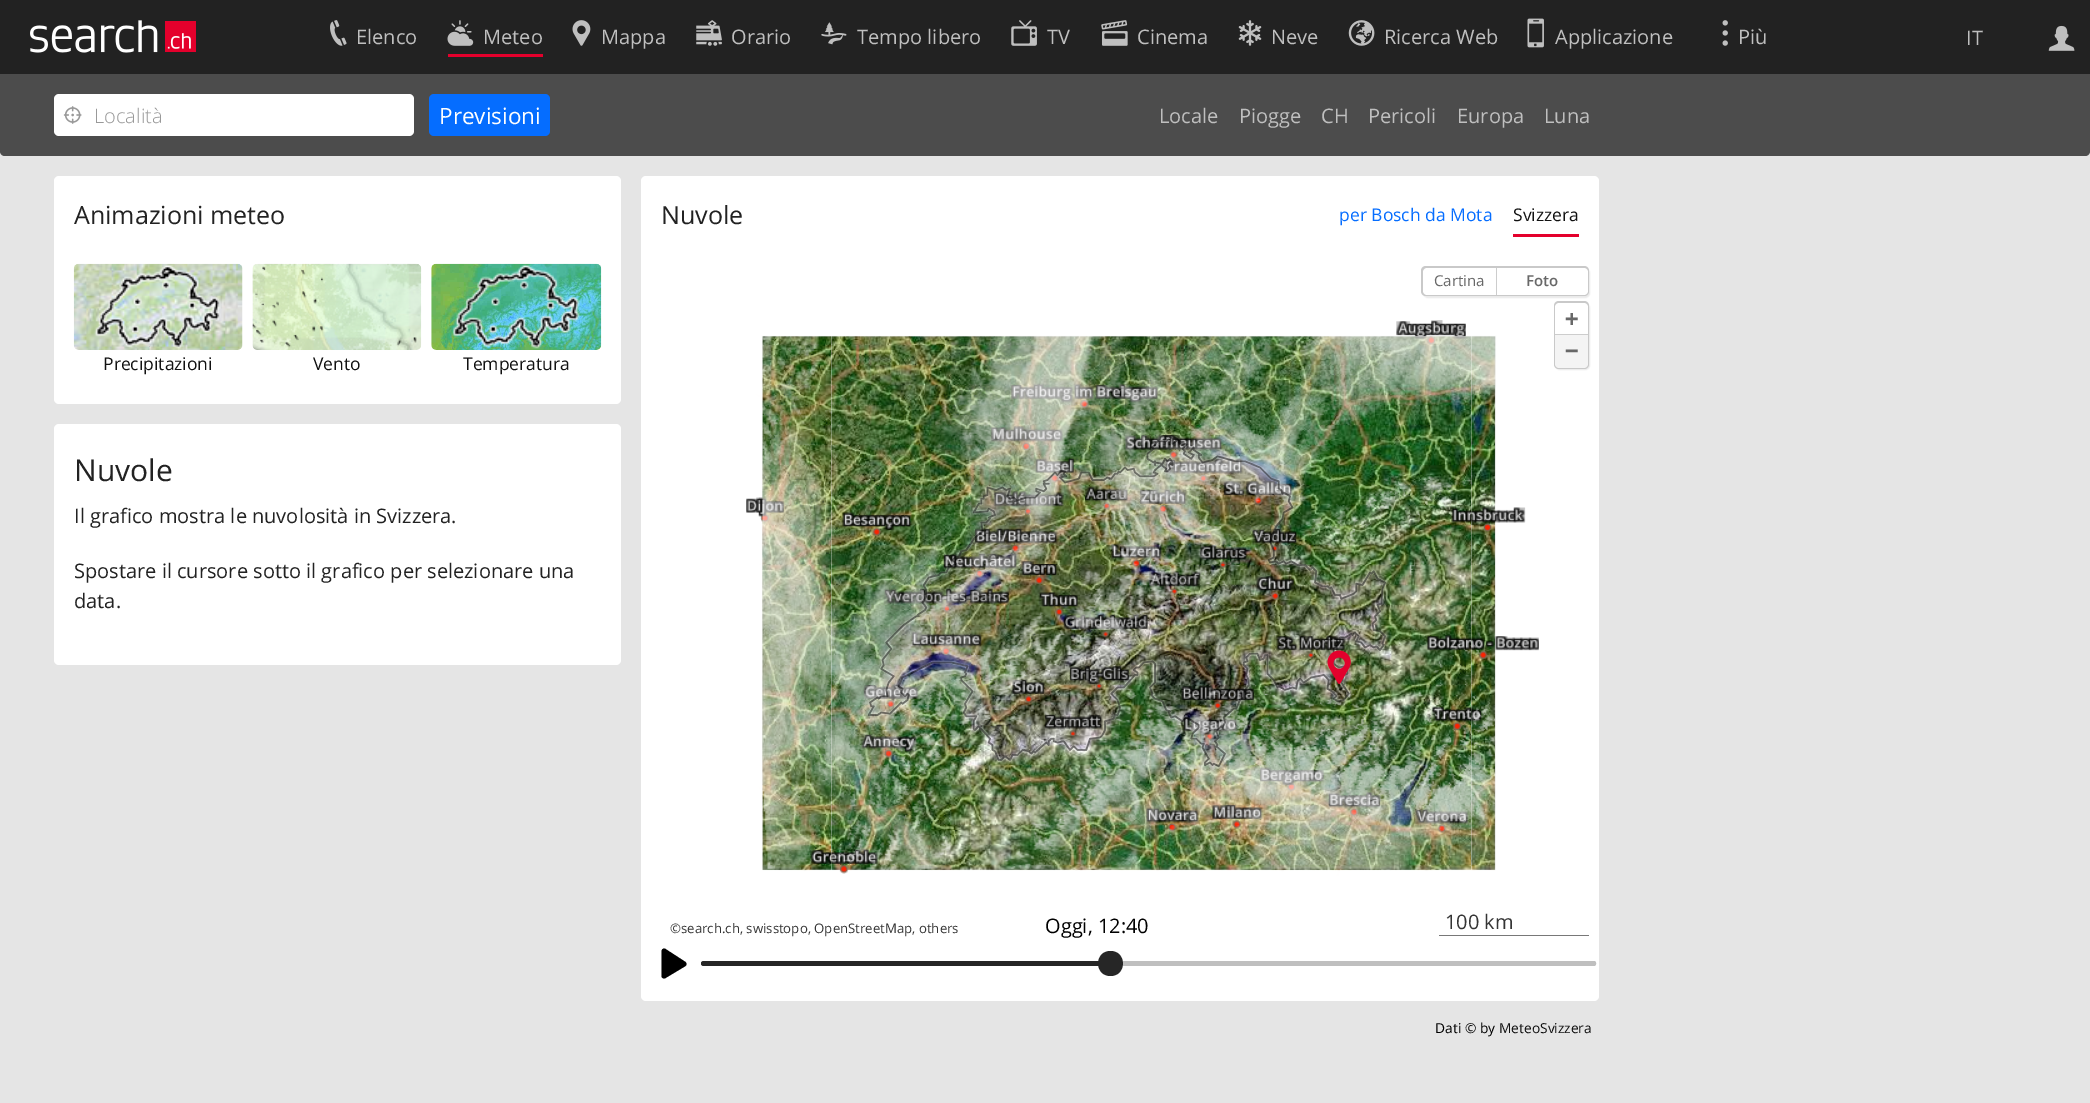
%!PS-Adobe-3.0
%%BoundingBox: 0 0 2090 1103
%%LanguageLevel: 3
%%Pages: 1
%%EndComments
%%BeginProlog
/m { moveto } bind def
/l { lineto } bind def
/c { curveto } bind def
/h { closepath } bind def
/f { fill } bind def
/S { stroke } bind def
/q { gsave } bind def
/Q { grestore } bind def
/w { setlinewidth } bind def
/fn { [ exch dup neg 0 0 3 -1 roll 0 0 ] selectfont } def
/tx { moveto show } def
/bx { rectfill } def
/al { dup .setfillconstantalpha .setstrokeconstantalpha } def
/rr { 5 dict begin { /r /h /w /y /x } { exch def } forall
  x r add y moveto x w add y 2 copy h add r arct x w add y h add x 1 index r arct
  x y h add x y r arct x y 2 copy exch w add exch r arct closepath end } def
/sh { 12 dict begin { /a /b /q /h /w /y /x } { exch def } forall gsave /was 0 def
  9 -2 -9 { dup b mul 4 div /e exch def 1 sub .425 mul 2.718 exch exp 1 add a .99 .min exch div /now exch def
    1 1 now sub 1 was sub div sub al /was now def
    w h .min e 2 mul add 0 gt { x e sub y e sub w e 2 mul add h e 2 mul add
      q e add b .6 mul add w h .min 2 div e add .min 0 .max rr fill } if } for grestore end } def
/im { 5 dict begin { /h /w /y /x /name } { exch def } forall
  gsave x y translate w h scale
  w h 8 [w 0 0 h 0 0] name (r) file false 3 colorimage grestore end } def
%%EndProlog
%%BeginSetup
<< /PageSize [2090 1103] /PageUsesTransparency true >> setpagedevice
%%EndSetup
%%Page: 1 1
0 .pushpdf14devicefilter
0 1103 translate 1 -1 scale
4 setmiterlimit
0.898 setgray
0 0 2090 1103 bx
0.133 setgray
0 0 2090 74 bx
(image0.raw) 30 20 166 33 im
(image1.raw) 330 20 17 26 im
/OpenSans-Regular 20 fn
0.749 setgray
(Elenco) 356 44 tx
0.894 0 0.173 setrgbcolor
448 54 95 3 bx
(image2.raw) 447 20 27 26 im
0.749 setgray
(Meteo) 483 44 tx
(image3.raw) 572 20 19 26 im
(Mappa) 601 44 tx
(image4.raw) 696 20 26 26 im
(Orario) 731 44 tx
(image5.raw) 821 22 26 23 im
(Tempo libero) 857 44 tx
(image6.raw) 1011 20 26 26 im
(TV) 1047 44 tx
(image7.raw) 1101 20 27 26 im
(Cinema) 1137 44 tx
(image8.raw) 1238 20 24 26 im
(Neve) 1271 44 tx
(image9.raw) 1348 20 27 26 im
(Ricerca Web) 1384 44 tx
(image10.raw) 1527 18 17 30 im
(Applicazione) 1555 44 tx
(image11.raw) 1722 20 6 26 im
(Più) 1738 44 tx
(IT) 1966 45 tx
(image12.raw) 2048 25 27 26 im
0.298 setgray
0 74 m 2090 74 l 2090 151 l 2090 154 2088 156 2085 156 c 5 156 l 2 156 0 154 0 151 c h f
1 setgray
54 94 360 42 5 rr f
(image13.raw) 63 106 19 18 im
/OpenSans-Light 20 fn
0.6 setgray
(Località) 94 123 tx
0.02 0.427 1 setrgbcolor
429 94 121 42 5 rr f
/OpenSans-Regular 22.5 fn
1 setgray
(Previsioni) 439 124 tx
/OpenSans-Regular 20 fn
0.749 setgray
(Locale) 1159 123 tx
(Piogge) 1239 123 tx
(CH) 1321 123 tx
(Pericoli) 1368 123 tx
(Europa) 1457 123 tx
(Luna) 1544 123 tx
1 setgray
54 176 567 228 5 rr f
/OpenSans-Regular 25 fn
0.133 setgray
(Animazioni meteo) 74 224 tx
(image14.raw) 73 263 170 87 im
0.784 0.769 0.78 setrgbcolor
149 346 1 1 bx
(image15.raw) 95 265 126 84 im
/OpenSans-Regular 17.5 fn
0.067 setgray
(Precipitazioni) 103 370 tx
(image16.raw) 252 263 170 87 im
(image17.raw) 252 264 169 86 im
(Vento) 313 370 tx
(image18.raw) 431 263 171 87 im
(image19.raw) 452 264 128 85 im
(Temperatura) 463 370 tx
1 setgray
54 424 567 241 5 rr f
/OpenSans-Regular 30 fn
0.133 setgray
(Nuvole) 74 481 tx
/OpenSans-Regular 20 fn
(Il grafico mostra le nuvolosità in Svizzera.) 74 523 tx
(Spostare il cursore sotto il grafico per selezionare una) 74 578 tx
(data.) 74 608 tx
1 setgray
641 176 958 825 5 rr f
/OpenSans-Regular 25 fn
0.133 setgray
(Nuvole) 661 224 tx
/OpenSans-Regular 17.5 fn
0.02 0.427 1 setrgbcolor
(per Bosch da Mota) 1339 221 tx
0.894 0 0.173 setrgbcolor
1513 234 66 3 bx
0.067 setgray
(Svizzera) 1513 221 tx
0.012 setgray
1423 268 167 30 5 0.5 0.08 sh
0.788 setgray
1426 266 m 1584 266 l 1587 266 1589 268 1589 271 c 1589 291 l 1589 294 1587 296 1584 296 c 1426 296 l 1423 296 1421 294 1421 291 c 1421 271 l 1421 268 1423 266 1426 266 c h f
1 setgray
1427 268 m 1498 268 l 1498 295 l 1427 295 l 1425 295 1423 293 1423 291 c 1423 272 l 1423 270 1425 268 1427 268 c h f
0.804 setgray
1496 268 1 27 bx
/OpenSans-Regular 15 fn
0.408 setgray
(Cartina) 1434 286 tx
1 setgray
1498 268 m 1584 268 l 1586 268 1588 270 1588 272 c 1588 291 l 1588 293 1586 295 1584 295 c 1498 295 l h f
/OpenSans-SemiBold 15 fn
0.408 setgray
(Foto) 1526 286 tx
0.012 setgray
1555 303 35 67 5 0.5 0.08 sh
0.788 setgray
1559 301 m 1584 301 l 1587 301 1589 303 1589 306 c 1589 364 l 1589 367 1587 369 1584 369 c 1559 369 l 1556 369 1554 367 1554 364 c 1554 306 l 1554 303 1556 301 1559 301 c h f
1 setgray
1559 303 m 1584 303 l 1586 303 1588 305 1588 307 c 1588 335 l 1555 335 l 1555 307 l 1555 305 1557 303 1559 303 c h f
0.804 setgray
1555 334 33 1 bx
/DejaVuSansMono-Bold 22.5 fn
0.408 setgray
(+) 1565 326 tx
0.957 setgray
1555 335 m 1588 335 l 1588 364 l 1588 366 1586 368 1584 368 c 1559 368 l 1557 368 1555 366 1555 364 c h f
0.408 setgray
(−) 1565 358 tx
/OpenSans-Regular 13.2 fn
0.208 setgray
(©search.ch, swisstopo, OpenStreetMap, others) 670 933 tx
0.471 setgray
1439 935 150 1 bx
/OpenSans-Regular 20 fn
0.208 setgray
(100 km) 1445 929 tx
(image23.raw) 751 328 80 557 im
(image24.raw) 831 324 640 561 im
(image25.raw) 1471 328 40 557 im
(image26.raw) 751 324 760 561 im
(image20.raw) 746 497 85 367 im
(image21.raw) 831 320 640 554 im
(image22.raw) 1471 507 68 215 im
(image27.raw) 762 336 733 533 im
(image28.raw) 867 435 519 333 im
(image29.raw) 1327 650 24 34 im
0 setgray
(Oggi, 12:40) 1045 933 tx
664 951 m 684 964 l 664 976 l h q f Q
5 w
1 setlinejoin
S
0.749 setgray
704 961 m 1594 961 l 1595 961 l 1597 963 1596 966 1594 966 c 704 966 l 700 966 700 961 704 961 c h f
0.149 setgray
704 961 m 1102 961 l 1104 962 l 1106 963 1105 966 1103 966 c 704 966 l 700 966 700 961 704 961 c h f
1110.5 951 m 1127 951 1127 976 1110.5 976 c 1094 976 1094 951 1110.5 951 c h f
/OpenSans-Regular 13.75 fn
0 setgray
(Dati © by) 1435 1033 tx
0.067 setgray
(MeteoSvizzera) 1499 1033 tx
.poppdf14devicefilter showpage
%%EOF
